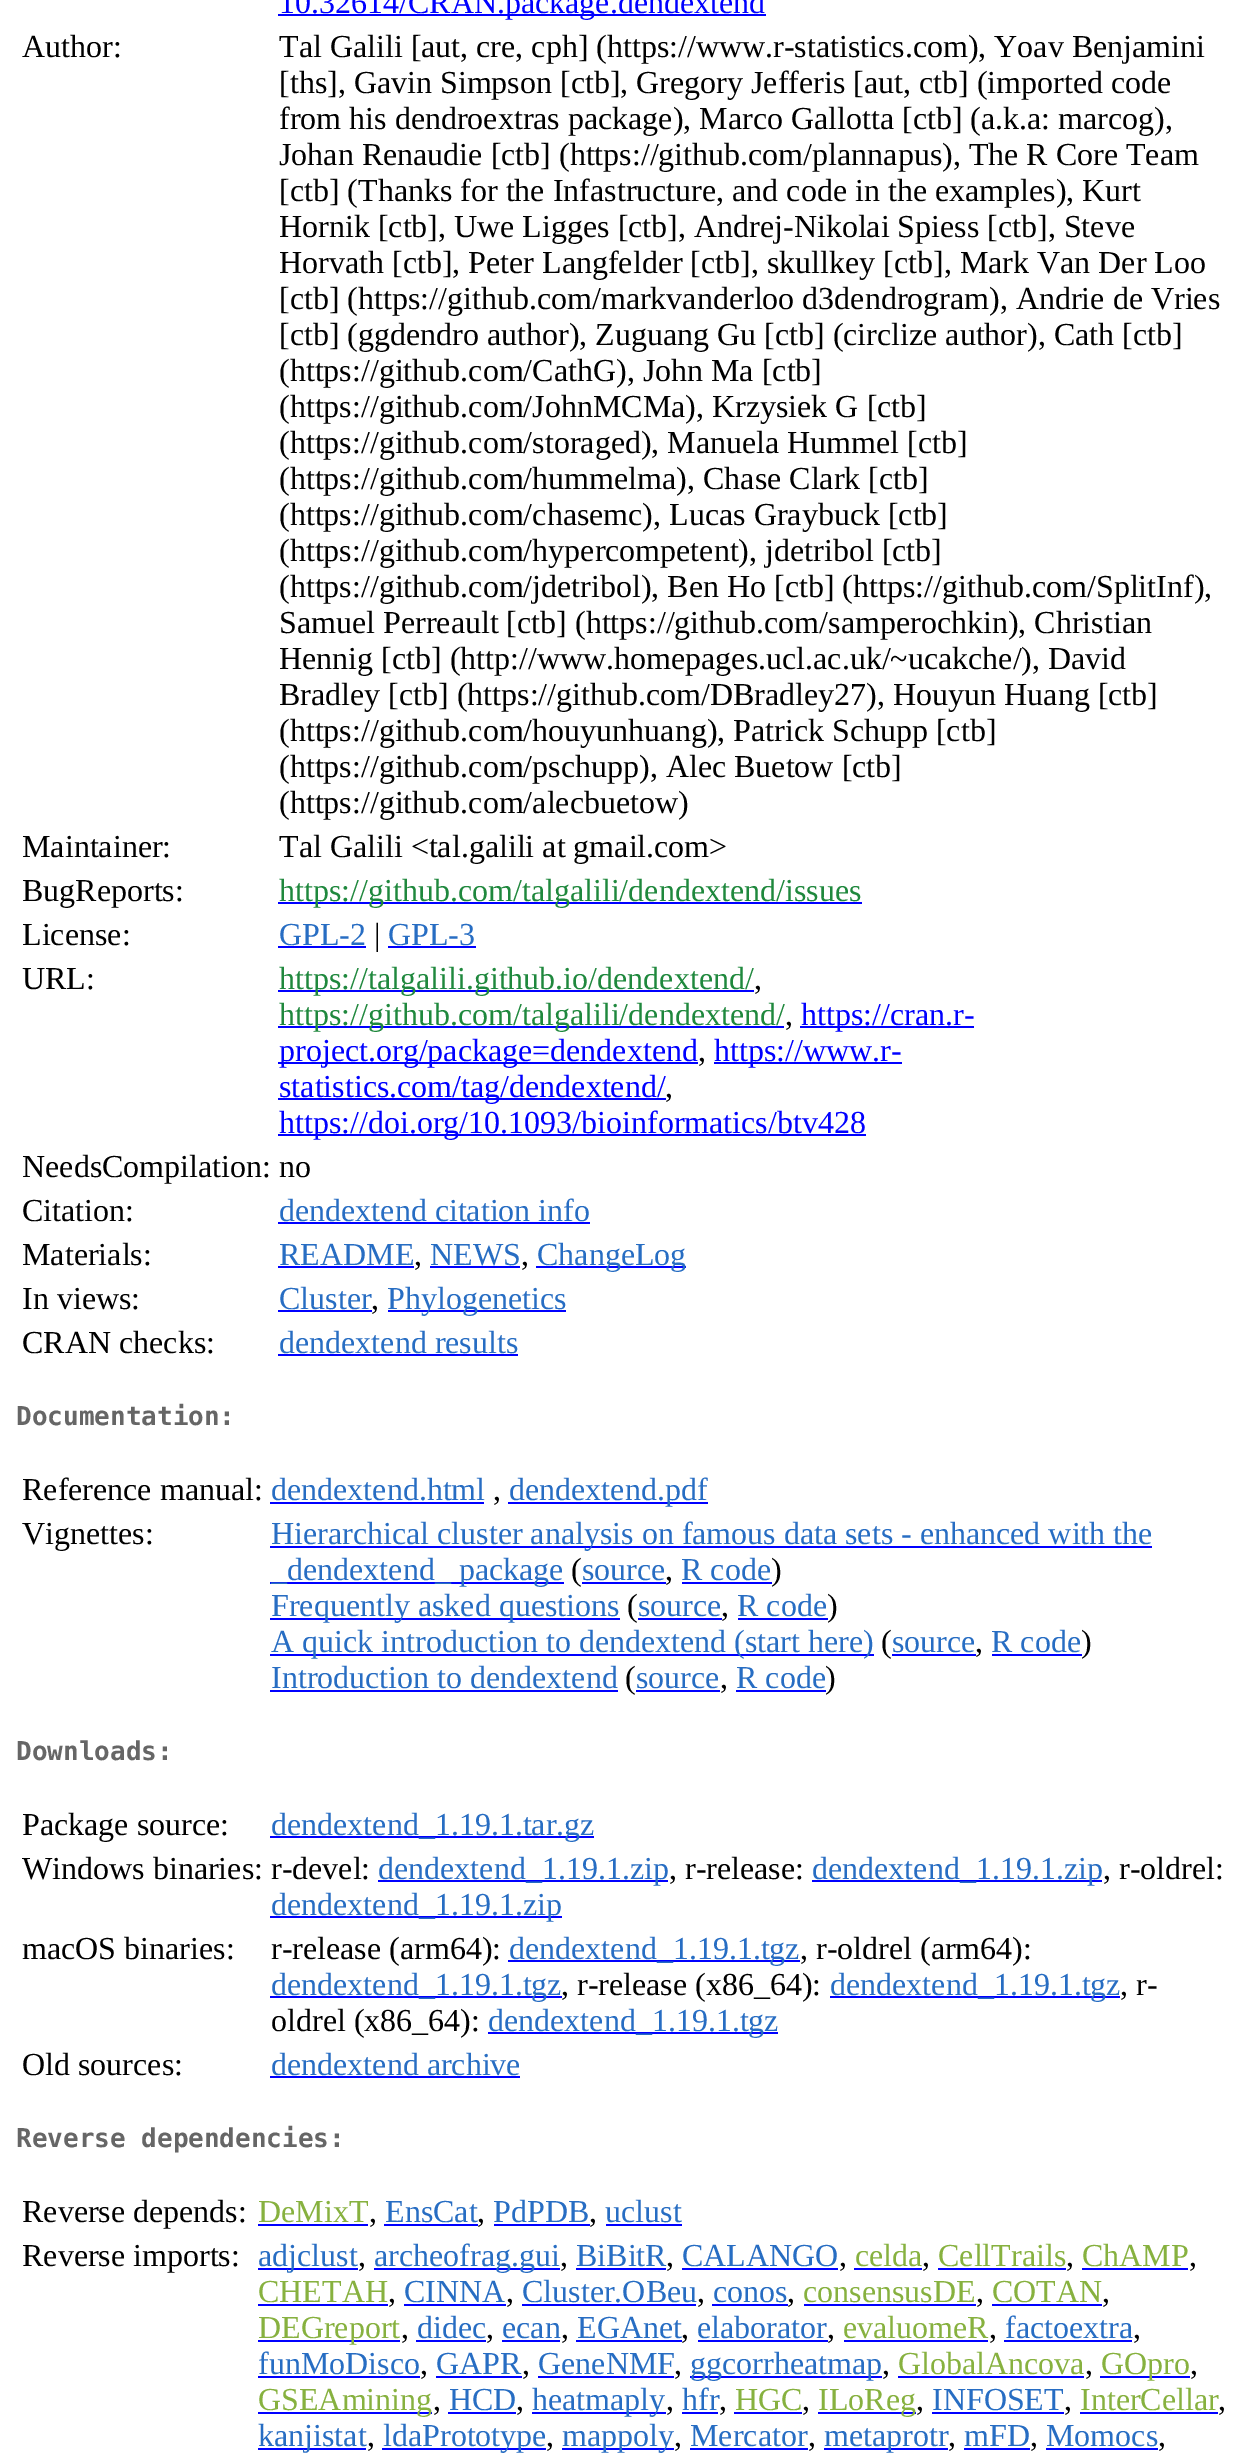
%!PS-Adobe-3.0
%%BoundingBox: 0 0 1249 2459
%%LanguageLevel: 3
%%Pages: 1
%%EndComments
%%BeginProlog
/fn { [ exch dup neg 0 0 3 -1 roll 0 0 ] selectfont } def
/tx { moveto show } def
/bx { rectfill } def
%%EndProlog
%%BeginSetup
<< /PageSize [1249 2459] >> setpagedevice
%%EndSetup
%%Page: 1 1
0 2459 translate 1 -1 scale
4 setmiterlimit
1 setgray
0 0 1249 2459 bx
0 0 1 setrgbcolor
278 14 488 2 bx
/LiberationSerif-Regular 32 fn
(10.32614/CRAN.package.dendextend) 279 13 tx
0 setgray
(Author:) 22 57 tx
(Tal Galili [aut, cre, cph] \(https://www.r-statistics.com\), Yoav Benjamini) 279 57 tx
([ths], Gavin Simpson [ctb], Gregory Jefferis [aut, ctb] \(imported code) 279 93 tx
(from his dendroextras package\), Marco Gallotta [ctb] \(a.k.a: marcog\),) 279 129 tx
(Johan Renaudie [ctb] \(https://github.com/plannapus\), The R Core Team) 279 165 tx
([ctb] \(Thanks for the Infastructure, and code in the examples\), Kurt) 279 201 tx
(Hornik [ctb], Uwe Ligges [ctb], Andrej-Nikolai Spiess [ctb], Steve) 279 237 tx
(Horvath [ctb], Peter Langfelder [ctb], skullkey [ctb], Mark Van Der Loo) 279 273 tx
([ctb] \(https://github.com/markvanderloo d3dendrogram\), Andrie de Vries) 279 309 tx
([ctb] \(ggdendro author\), Zuguang Gu [ctb] \(circlize author\), Cath [ctb]) 279 345 tx
(\(https://github.com/CathG\), John Ma [ctb]) 279 381 tx
(\(https://github.com/JohnMCMa\), Krzysiek G [ctb]) 279 417 tx
(\(https://github.com/storaged\), Manuela Hummel [ctb]) 279 453 tx
(\(https://github.com/hummelma\), Chase Clark [ctb]) 279 489 tx
(\(https://github.com/chasemc\), Lucas Graybuck [ctb]) 279 525 tx
(\(https://github.com/hypercompetent\), jdetribol [ctb]) 279 561 tx
(\(https://github.com/jdetribol\), Ben Ho [ctb] \(https://github.com/SplitInf\),) 279 597 tx
(Samuel Perreault [ctb] \(https://github.com/samperochkin\), Christian) 279 633 tx
(Hennig [ctb] \(http://www.homepages.ucl.ac.uk/~ucakche/\), David) 279 669 tx
(Bradley [ctb] \(https://github.com/DBradley27\), Houyun Huang [ctb]) 279 705 tx
(\(https://github.com/houyunhuang\), Patrick Schupp [ctb]) 279 741 tx
(\(https://github.com/pschupp\), Alec Buetow [ctb]) 279 777 tx
(\(https://github.com/alecbuetow\)) 279 813 tx
(Maintainer:) 22 857 tx
(Tal Galili <tal.galili at gmail.com>) 279 857 tx
(BugReports:) 22 901 tx
0 0 1 setrgbcolor
278 902 584 2 bx
0.122 0.533 0.239 setrgbcolor
(https://github.com/talgalili/dendextend/issues) 279 901 tx
0 setgray
(License:) 22 945 tx
0.153 0.427 0.765 setrgbcolor
(GPL-2) 279 945 tx
0 0 1 setrgbcolor
278 946 88 2 bx
0 setgray
(|) 374 945 tx
0.153 0.427 0.765 setrgbcolor
(GPL-3) 388 945 tx
0 0 1 setrgbcolor
388 946 88 2 bx
0 setgray
(URL:) 22 989 tx
0 0 1 setrgbcolor
278 990 476 2 bx
0.122 0.533 0.239 setrgbcolor
(https://talgalili.github.io/dendextend/) 279 989 tx
0 setgray
(,) 754 989 tx
0 0 1 setrgbcolor
278 1026 506 2 bx
0.122 0.533 0.239 setrgbcolor
(https://github.com/talgalili/dendextend/) 279 1025 tx
0 setgray
(,) 785 1025 tx
0 0 1 setrgbcolor
800 1026 174 2 bx
(https://cran.r-) 801 1025 tx
278 1062 420 2 bx
(project.org/package=dendextend) 279 1061 tx
0 setgray
(,) 698 1061 tx
0 0 1 setrgbcolor
714 1062 188 2 bx
(https://www.r-) 714 1061 tx
278 1098 388 2 bx
(statistics.com/tag/dendextend/) 279 1097 tx
0 setgray
(,) 665 1097 tx
0 0 1 setrgbcolor
278 1134 588 2 bx
(https://doi.org/10.1093/bioinformatics/btv428) 279 1133 tx
0 setgray
(NeedsCompilation: no) 22 1177 tx
(Citation:) 22 1221 tx
0.153 0.427 0.765 setrgbcolor
(dendextend citation info) 279 1221 tx
0 0 1 setrgbcolor
278 1222 312 2 bx
0 setgray
(Materials:) 22 1265 tx
0.153 0.427 0.765 setrgbcolor
(README) 279 1265 tx
0 0 1 setrgbcolor
278 1266 136 2 bx
0 setgray
(,) 414 1265 tx
0.153 0.427 0.765 setrgbcolor
(NEWS) 430 1265 tx
0 0 1 setrgbcolor
430 1266 90 2 bx
0 setgray
(,) 521 1265 tx
0 0 1 setrgbcolor
536 1266 150 2 bx
0.153 0.427 0.765 setrgbcolor
(ChangeLog) 537 1265 tx
0 setgray
(In views:) 22 1309 tx
0.153 0.427 0.765 setrgbcolor
(Cluster) 279 1309 tx
0 0 1 setrgbcolor
278 1310 94 2 bx
0 setgray
(,) 371 1309 tx
0 0 1 setrgbcolor
388 1310 178 2 bx
0.153 0.427 0.765 setrgbcolor
(Phylogenetics) 387 1309 tx
0 setgray
(CRAN checks:) 22 1353 tx
0.153 0.427 0.765 setrgbcolor
(dendextend results) 279 1353 tx
0 0 1 setrgbcolor
278 1354 240 2 bx
/DejaVuSansMono-Bold 26 fn
0.4 setgray
(Documentation:) 16 1425 tx
/LiberationSerif-Regular 32 fn
0 setgray
(Reference manual:) 22 1500 tx
0.153 0.427 0.765 setrgbcolor
(dendextend.html) 271 1500 tx
0 0 1 setrgbcolor
270 1502 214 2 bx
0 setgray
(,) 493 1500 tx
0 0 1 setrgbcolor
508 1502 200 2 bx
0.153 0.427 0.765 setrgbcolor
(dendextend.pdf) 509 1500 tx
0 setgray
(Vignettes:) 22 1544 tx
0 0 1 setrgbcolor
270 1546 882 2 bx
0.153 0.427 0.765 setrgbcolor
(Hierarchical cluster analysis on famous data sets - enhanced with the) 271 1544 tx
0 0 1 setrgbcolor
270 1582 294 2 bx
0.153 0.427 0.765 setrgbcolor
(_dendextend_ package) 271 1580 tx
0 setgray
(\() 571 1580 tx
0.153 0.427 0.765 setrgbcolor
(source) 582 1580 tx
0 0 1 setrgbcolor
582 1582 84 2 bx
0 setgray
(,) 665 1580 tx
0.153 0.427 0.765 setrgbcolor
(R code) 681 1580 tx
0 0 1 setrgbcolor
682 1582 90 2 bx
0 setgray
(\)) 771 1580 tx
0 0 1 setrgbcolor
270 1618 350 2 bx
0.153 0.427 0.765 setrgbcolor
(Frequently asked questions) 271 1616 tx
0 setgray
(\() 627 1616 tx
0.153 0.427 0.765 setrgbcolor
(source) 638 1616 tx
0 0 1 setrgbcolor
638 1618 84 2 bx
0 setgray
(,) 721 1616 tx
0.153 0.427 0.765 setrgbcolor
(R code) 737 1616 tx
0 0 1 setrgbcolor
738 1618 90 2 bx
0 setgray
(\)) 827 1616 tx
0 0 1 setrgbcolor
270 1654 604 2 bx
0.153 0.427 0.765 setrgbcolor
(A quick introduction to dendextend \(start here\)) 271 1652 tx
0 setgray
(\() 881 1652 tx
0.153 0.427 0.765 setrgbcolor
(source) 892 1652 tx
0 0 1 setrgbcolor
892 1654 84 2 bx
0 setgray
(,) 975 1652 tx
0.153 0.427 0.765 setrgbcolor
(R code) 991 1652 tx
0 0 1 setrgbcolor
992 1654 90 2 bx
0 setgray
(\)) 1081 1652 tx
0.153 0.427 0.765 setrgbcolor
(Introduction to dendextend) 271 1688 tx
0 0 1 setrgbcolor
270 1690 348 2 bx
0 setgray
(\() 625 1688 tx
0.153 0.427 0.765 setrgbcolor
(source) 636 1688 tx
0 0 1 setrgbcolor
636 1690 84 2 bx
0 setgray
(,) 720 1688 tx
0.153 0.427 0.765 setrgbcolor
(R code) 736 1688 tx
0 0 1 setrgbcolor
736 1690 90 2 bx
0 setgray
(\)) 825 1688 tx
/DejaVuSansMono-Bold 26 fn
0.4 setgray
(Downloads:) 16 1760 tx
/LiberationSerif-Regular 32 fn
0 setgray
(Package source:) 22 1835 tx
0 0 1 setrgbcolor
270 1836 324 2 bx
0.153 0.427 0.765 setrgbcolor
(dendextend_1.19.1.tar.gz) 271 1835 tx
0 setgray
(Windows binaries: r-devel:) 22 1879 tx
0 0 1 setrgbcolor
378 1880 290 2 bx
0.153 0.427 0.765 setrgbcolor
(dendextend_1.19.1.zip) 378 1879 tx
0 setgray
(, r-release:) 669 1879 tx
0 0 1 setrgbcolor
812 1880 290 2 bx
0.153 0.427 0.765 setrgbcolor
(dendextend_1.19.1.zip) 812 1879 tx
0 setgray
(, r-oldrel:) 1103 1879 tx
0 0 1 setrgbcolor
270 1916 292 2 bx
0.153 0.427 0.765 setrgbcolor
(dendextend_1.19.1.zip) 271 1915 tx
0 setgray
(macOS binaries:) 22 1959 tx
(r-release \(arm64\):) 271 1959 tx
0 0 1 setrgbcolor
508 1960 292 2 bx
0.153 0.427 0.765 setrgbcolor
(dendextend_1.19.1.tgz) 509 1959 tx
0 setgray
(, r-oldrel \(arm64\):) 800 1959 tx
0 0 1 setrgbcolor
270 1996 292 2 bx
0.153 0.427 0.765 setrgbcolor
(dendextend_1.19.1.tgz) 271 1995 tx
0 setgray
(, r-release \(x86_64\):) 561 1995 tx
0 0 1 setrgbcolor
830 1996 290 2 bx
0.153 0.427 0.765 setrgbcolor
(dendextend_1.19.1.tgz) 830 1995 tx
0 setgray
(, r-) 1120 1995 tx
(oldrel \(x86_64\):) 271 2031 tx
0 0 1 setrgbcolor
488 2032 290 2 bx
0.153 0.427 0.765 setrgbcolor
(dendextend_1.19.1.tgz) 488 2031 tx
0 setgray
(Old sources:) 22 2075 tx
0.153 0.427 0.765 setrgbcolor
(dendextend archive) 271 2075 tx
0 0 1 setrgbcolor
270 2076 250 2 bx
/DejaVuSansMono-Bold 26 fn
0.4 setgray
(Reverse dependencies:) 16 2147 tx
/LiberationSerif-Regular 32 fn
0 setgray
(Reverse depends:) 22 2222 tx
0.529 0.694 0.247 setrgbcolor
(DeMixT) 258 2222 tx
0 0 1 setrgbcolor
258 2224 110 2 bx
0 setgray
(,) 369 2222 tx
0.153 0.427 0.765 setrgbcolor
(EnsCat) 385 2222 tx
0 0 1 setrgbcolor
384 2224 94 2 bx
0 setgray
(,) 477 2222 tx
0.153 0.427 0.765 setrgbcolor
(PdPDB) 493 2222 tx
0 0 1 setrgbcolor
494 2224 96 2 bx
0 setgray
(,) 589 2222 tx
0.153 0.427 0.765 setrgbcolor
(uclust) 605 2222 tx
0 0 1 setrgbcolor
606 2224 76 2 bx
0 setgray
(Reverse imports:) 22 2266 tx
0 0 1 setrgbcolor
258 2268 100 2 bx
0.153 0.427 0.765 setrgbcolor
(adjclust) 258 2266 tx
0 setgray
(,) 358 2266 tx
0 0 1 setrgbcolor
374 2268 186 2 bx
0.153 0.427 0.765 setrgbcolor
(archeofrag.gui) 374 2266 tx
0 setgray
(,) 560 2266 tx
0.153 0.427 0.765 setrgbcolor
(BiBitR) 576 2266 tx
0 0 1 setrgbcolor
576 2268 90 2 bx
0 setgray
(,) 666 2266 tx
0.153 0.427 0.765 setrgbcolor
(CALANGO) 682 2266 tx
0 0 1 setrgbcolor
682 2268 156 2 bx
0 setgray
(,) 839 2266 tx
0.529 0.694 0.247 setrgbcolor
(celda) 855 2266 tx
0 0 1 setrgbcolor
854 2268 68 2 bx
0 setgray
(,) 922 2266 tx
0.529 0.694 0.247 setrgbcolor
(CellTrails) 938 2266 tx
0 0 1 setrgbcolor
938 2268 128 2 bx
0 setgray
(,) 1066 2266 tx
0.529 0.694 0.247 setrgbcolor
(ChAMP) 1082 2266 tx
0 0 1 setrgbcolor
1082 2268 106 2 bx
0 setgray
(,) 1189 2266 tx
0.529 0.694 0.247 setrgbcolor
(CHETAH) 258 2302 tx
0 0 1 setrgbcolor
258 2304 130 2 bx
0 setgray
(,) 388 2302 tx
0.153 0.427 0.765 setrgbcolor
(CINNA) 404 2302 tx
0 0 1 setrgbcolor
404 2304 102 2 bx
0 setgray
(,) 506 2302 tx
0.153 0.427 0.765 setrgbcolor
(Cluster.OBeu) 522 2302 tx
0 0 1 setrgbcolor
522 2304 174 2 bx
0 setgray
(,) 697 2302 tx
0.153 0.427 0.765 setrgbcolor
(conos) 713 2302 tx
0 0 1 setrgbcolor
712 2304 76 2 bx
0 setgray
(,) 787 2302 tx
0.529 0.694 0.247 setrgbcolor
(consensusDE) 803 2302 tx
0 0 1 setrgbcolor
804 2304 172 2 bx
0 setgray
(,) 976 2302 tx
0.529 0.694 0.247 setrgbcolor
(COTAN) 992 2302 tx
0 0 1 setrgbcolor
992 2304 110 2 bx
0 setgray
(,) 1102 2302 tx
0 0 1 setrgbcolor
258 2340 142 2 bx
0.529 0.694 0.247 setrgbcolor
(DEGreport) 258 2338 tx
0 setgray
(,) 401 2338 tx
0.153 0.427 0.765 setrgbcolor
(didec) 417 2338 tx
0 0 1 setrgbcolor
416 2340 70 2 bx
0 setgray
(,) 486 2338 tx
0.153 0.427 0.765 setrgbcolor
(ecan) 502 2338 tx
0 0 1 setrgbcolor
502 2340 58 2 bx
0 setgray
(,) 561 2338 tx
0.153 0.427 0.765 setrgbcolor
(EGAnet) 577 2338 tx
0 0 1 setrgbcolor
576 2340 106 2 bx
0 setgray
(,) 681 2338 tx
0.153 0.427 0.765 setrgbcolor
(elaborator) 697 2338 tx
0 0 1 setrgbcolor
698 2340 130 2 bx
0 setgray
(,) 827 2338 tx
0.529 0.694 0.247 setrgbcolor
(evaluomeR) 843 2338 tx
0 0 1 setrgbcolor
844 2340 144 2 bx
0 setgray
(,) 989 2338 tx
0.153 0.427 0.765 setrgbcolor
(factoextra) 1005 2338 tx
0 0 1 setrgbcolor
1004 2340 128 2 bx
0 setgray
(,) 1133 2338 tx
0.153 0.427 0.765 setrgbcolor
(funMoDisco) 258 2374 tx
0 0 1 setrgbcolor
258 2376 162 2 bx
0 setgray
(,) 420 2374 tx
0.153 0.427 0.765 setrgbcolor
(GAPR) 436 2374 tx
0 0 1 setrgbcolor
436 2376 86 2 bx
0 setgray
(,) 522 2374 tx
0.153 0.427 0.765 setrgbcolor
(GeneNMF) 538 2374 tx
0 0 1 setrgbcolor
538 2376 136 2 bx
0 setgray
(,) 674 2374 tx
0 0 1 setrgbcolor
690 2376 192 2 bx
0.153 0.427 0.765 setrgbcolor
(ggcorrheatmap) 690 2374 tx
0 setgray
(,) 882 2374 tx
0.529 0.694 0.247 setrgbcolor
(GlobalAncova) 898 2374 tx
0 0 1 setrgbcolor
898 2376 186 2 bx
0 setgray
(,) 1085 2374 tx
0 0 1 setrgbcolor
1100 2376 90 2 bx
0.529 0.694 0.247 setrgbcolor
(GOpro) 1101 2374 tx
0 setgray
(,) 1190 2374 tx
0 0 1 setrgbcolor
258 2412 174 2 bx
0.529 0.694 0.247 setrgbcolor
(GSEAmining) 258 2410 tx
0 setgray
(,) 433 2410 tx
0.153 0.427 0.765 setrgbcolor
(HCD) 449 2410 tx
0 0 1 setrgbcolor
448 2412 68 2 bx
0 setgray
(,) 516 2410 tx
0 0 1 setrgbcolor
532 2412 134 2 bx
0.153 0.427 0.765 setrgbcolor
(heatmaply) 532 2410 tx
0 setgray
(,) 666 2410 tx
0.153 0.427 0.765 setrgbcolor
(hfr) 682 2410 tx
0 0 1 setrgbcolor
682 2412 36 2 bx
0 setgray
(,) 719 2410 tx
0.529 0.694 0.247 setrgbcolor
(HGC) 735 2410 tx
0 0 1 setrgbcolor
734 2412 68 2 bx
0 setgray
(,) 802 2410 tx
0 0 1 setrgbcolor
818 2412 98 2 bx
0.529 0.694 0.247 setrgbcolor
(ILoReg) 818 2410 tx
0 setgray
(,) 916 2410 tx
0.153 0.427 0.765 setrgbcolor
(INFOSET) 932 2410 tx
0 0 1 setrgbcolor
932 2412 132 2 bx
0 setgray
(,) 1064 2410 tx
0.529 0.694 0.247 setrgbcolor
(InterCellar) 1080 2410 tx
0 0 1 setrgbcolor
1080 2412 138 2 bx
0 setgray
(,) 1218 2410 tx
0 0 1 setrgbcolor
258 2448 108 2 bx
0.153 0.427 0.765 setrgbcolor
(kanjistat) 258 2446 tx
0 setgray
(,) 367 2446 tx
0 0 1 setrgbcolor
382 2448 164 2 bx
0.153 0.427 0.765 setrgbcolor
(ldaPrototype) 383 2446 tx
0 setgray
(,) 546 2446 tx
0 0 1 setrgbcolor
562 2448 112 2 bx
0.153 0.427 0.765 setrgbcolor
(mappoly) 562 2446 tx
0 setgray
(,) 674 2446 tx
0.153 0.427 0.765 setrgbcolor
(Mercator) 690 2446 tx
0 0 1 setrgbcolor
690 2448 118 2 bx
0 setgray
(,) 808 2446 tx
0 0 1 setrgbcolor
824 2448 124 2 bx
0.153 0.427 0.765 setrgbcolor
(metaprotr) 824 2446 tx
0 setgray
(,) 948 2446 tx
0.153 0.427 0.765 setrgbcolor
(mFD) 964 2446 tx
0 0 1 setrgbcolor
964 2448 66 2 bx
0 setgray
(,) 1030 2446 tx
0.153 0.427 0.765 setrgbcolor
(Momocs) 1046 2446 tx
0 0 1 setrgbcolor
1046 2448 112 2 bx
0 setgray
(,) 1158 2446 tx
showpage
%%EOF
